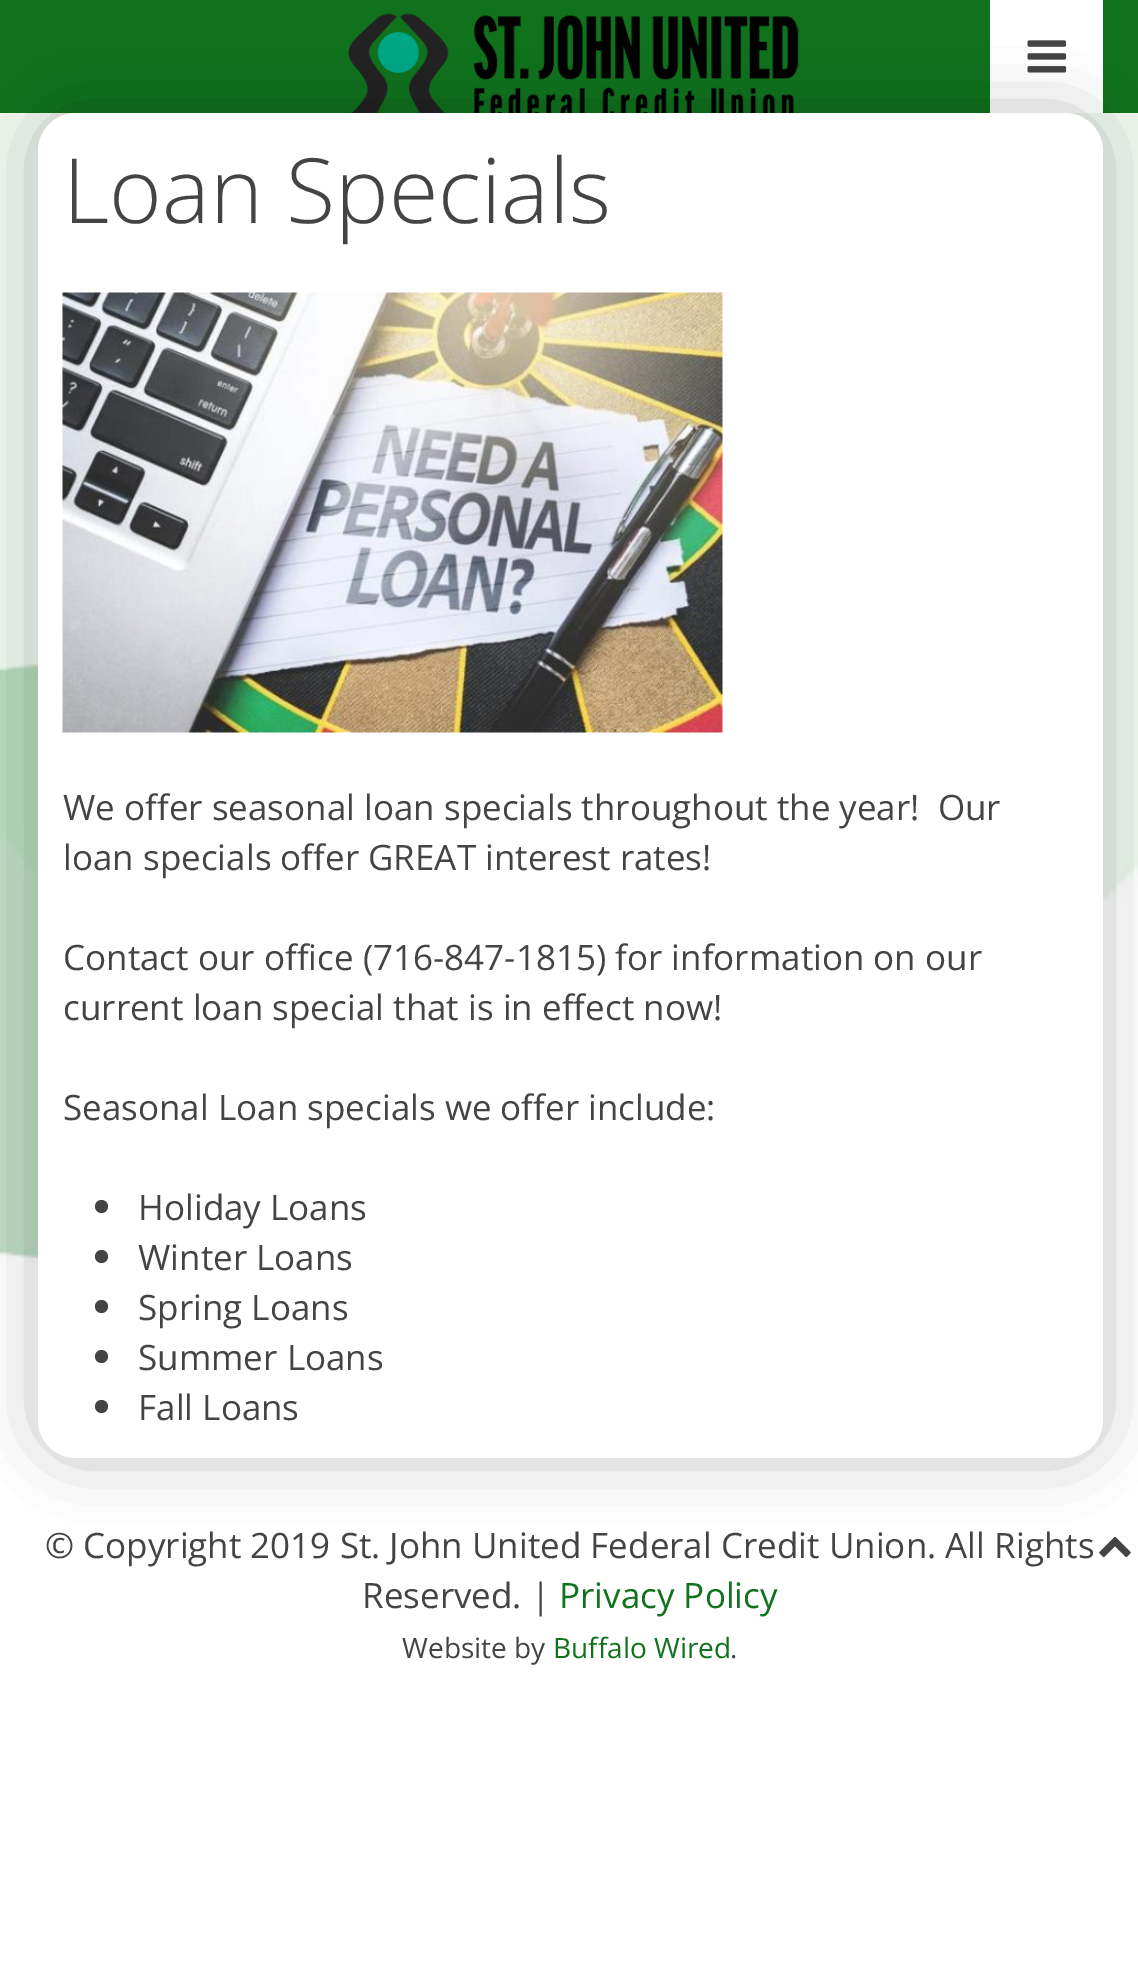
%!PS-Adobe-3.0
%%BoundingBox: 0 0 1138 1984
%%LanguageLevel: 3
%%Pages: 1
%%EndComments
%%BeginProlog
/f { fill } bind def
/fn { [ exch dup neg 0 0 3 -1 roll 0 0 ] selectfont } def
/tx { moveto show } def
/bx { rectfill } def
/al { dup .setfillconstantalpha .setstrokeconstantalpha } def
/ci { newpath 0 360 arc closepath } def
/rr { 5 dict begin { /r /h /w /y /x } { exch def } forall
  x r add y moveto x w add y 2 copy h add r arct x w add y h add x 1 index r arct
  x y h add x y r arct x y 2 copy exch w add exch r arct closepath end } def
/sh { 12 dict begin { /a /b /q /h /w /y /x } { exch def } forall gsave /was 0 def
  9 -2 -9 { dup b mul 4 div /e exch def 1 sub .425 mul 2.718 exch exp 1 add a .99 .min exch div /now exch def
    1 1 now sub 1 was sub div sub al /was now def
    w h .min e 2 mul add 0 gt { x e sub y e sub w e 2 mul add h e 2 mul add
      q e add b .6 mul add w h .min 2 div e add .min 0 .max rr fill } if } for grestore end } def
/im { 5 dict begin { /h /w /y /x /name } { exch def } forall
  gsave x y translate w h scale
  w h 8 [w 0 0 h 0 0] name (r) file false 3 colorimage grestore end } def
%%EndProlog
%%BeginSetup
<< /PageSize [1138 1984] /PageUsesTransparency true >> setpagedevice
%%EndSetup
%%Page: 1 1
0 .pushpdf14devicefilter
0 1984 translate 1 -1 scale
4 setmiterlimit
1 setgray
0 0 1138 1984 bx
(image0.raw) 0 113 1138 1146 im
0.063 0.447 0.114 setrgbcolor
0 0 1138 113 bx
(image1.raw) 348 13 451 100 im
1 setgray
990 0 113 113 bx
(image2.raw) 1027 40 40 33 im
0 setgray
50 125 1040 1320 25 35 0.35 sh
1 setgray
38 113 1065 1345 38 rr f
/OpenSans-Light 90 fn
0.267 setgray
(Loan Specials) 63 223 tx
(image3.raw) 62 292 661 441 im
/OpenSans-Regular 35 fn
(We offer seasonal loan specials throughout the year!  Our) 63 820 tx
(loan specials offer GREAT interest rates!) 63 870 tx
(Contact our office \(716-847-1815\) for information on our) 63 970 tx
(current loan special that is in effect now!) 63 1020 tx
(Seasonal Loan specials we offer include:) 63 1120 tx
101.5 1206.5 6.5 ci f
(Holiday Loans) 138 1220 tx
101.5 1256.5 6.5 ci f
(Winter Loans) 138 1270 tx
101.5 1306.5 6.5 ci f
(Spring Loans) 138 1320 tx
101.5 1356.5 6.5 ci f
(Summer Loans) 138 1370 tx
101.5 1406.5 6.5 ci f
(Fall Loans) 138 1420 tx
(© Copyright 2019 St. John United Federal Credit Union. All Rights) 45 1558 tx
(Reserved. |) 362 1608 tx
0.063 0.447 0.114 setrgbcolor
(Privacy Policy) 559 1608 tx
/OpenSans-Regular 28 fn
0.267 setgray
(Website by) 402 1658 tx
0.063 0.447 0.114 setrgbcolor
(Buffalo Wired) 553 1658 tx
0.267 setgray
(.) 730 1658 tx
(image4.raw) 1099 1536 32 22 im
.poppdf14devicefilter showpage
%%EOF
